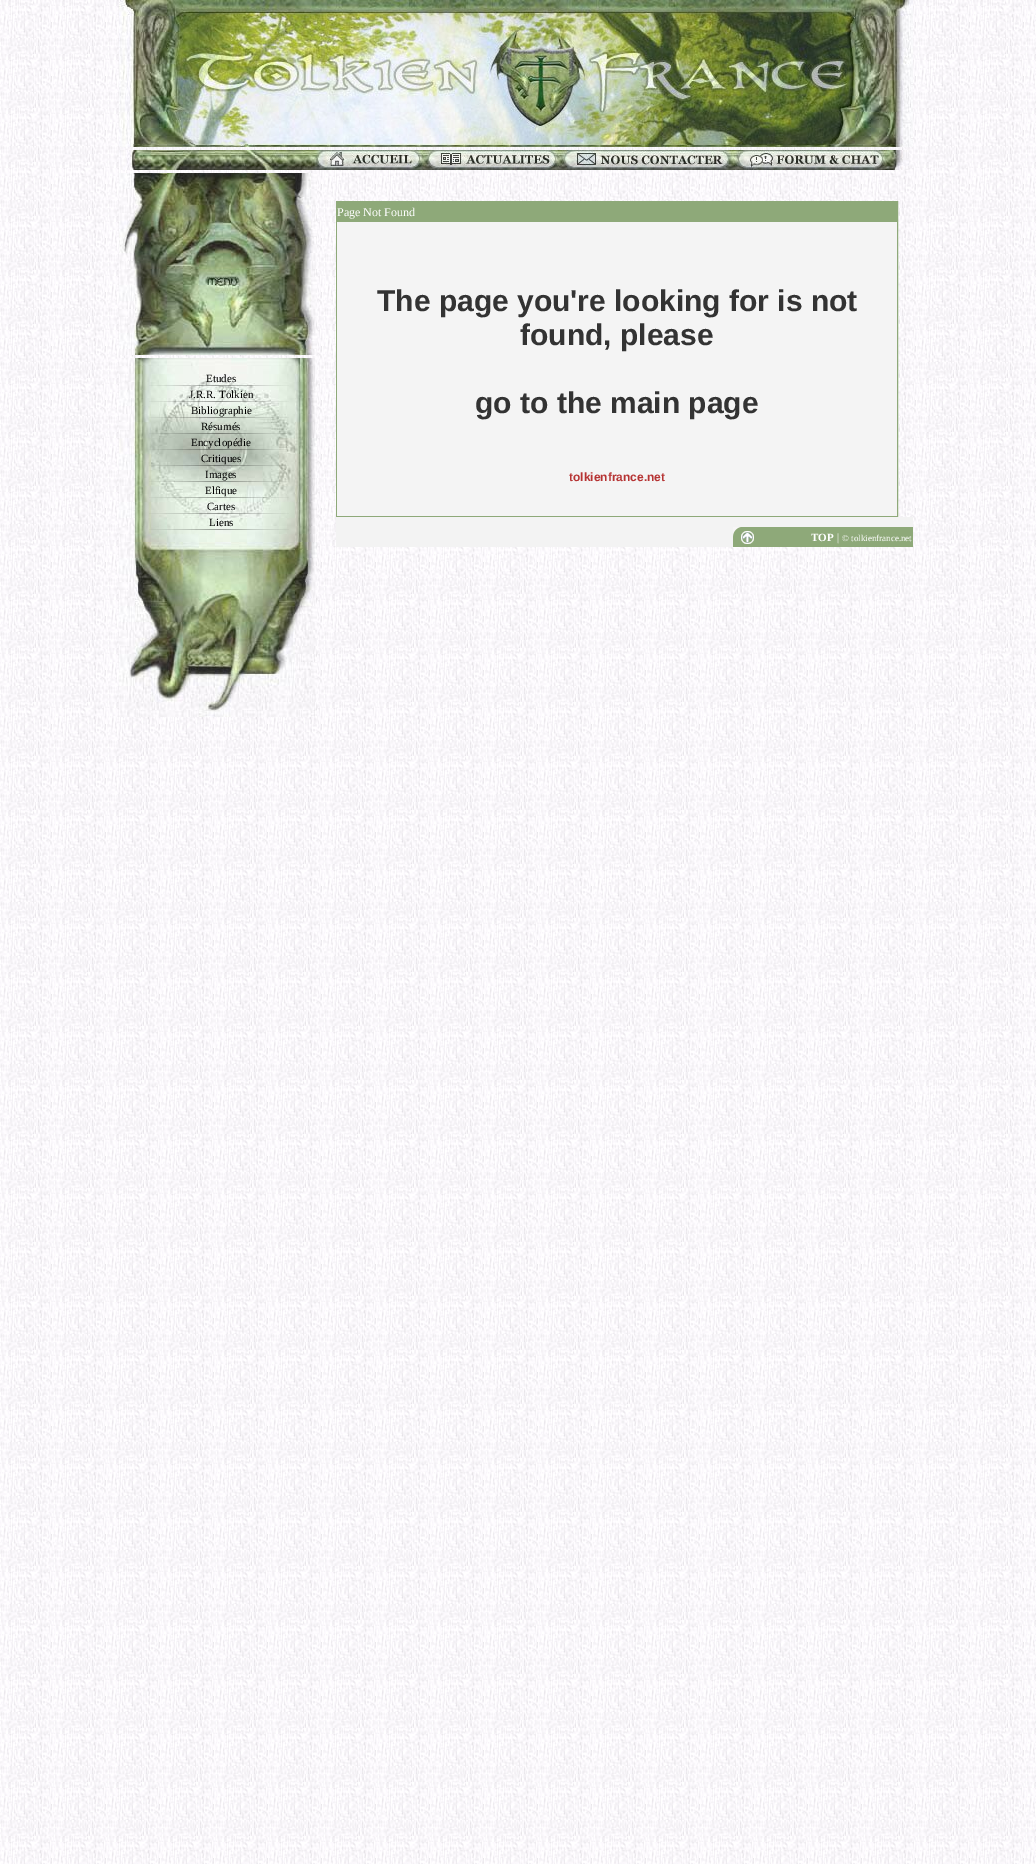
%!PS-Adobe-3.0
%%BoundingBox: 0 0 1036 1864
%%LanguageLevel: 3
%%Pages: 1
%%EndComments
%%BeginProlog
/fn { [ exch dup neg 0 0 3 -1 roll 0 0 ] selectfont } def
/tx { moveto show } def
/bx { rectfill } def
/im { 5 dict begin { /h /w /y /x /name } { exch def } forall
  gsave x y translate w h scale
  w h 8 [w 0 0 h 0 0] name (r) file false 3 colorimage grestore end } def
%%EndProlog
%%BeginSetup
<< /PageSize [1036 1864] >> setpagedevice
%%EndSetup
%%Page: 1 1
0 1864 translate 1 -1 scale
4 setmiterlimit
1 setgray
0 0 1036 1864 bx
(image0.raw) 0 0 1036 1864 im
(image1.raw) 119 0 794 147 im
(image2.raw) 119 150 790 20 im
(image3.raw) 119 173 198 182 im
(image4.raw) 119 358 198 184 im
(image5.raw) 149 385 140 1 im
/LiberationSerif-Regular 11 fn
0 setgray
(Etudes) 206 382 tx
(image6.raw) 149 401 140 1 im
(J.R.R. Tolkien) 189 398 tx
(image7.raw) 149 417 140 1 im
(Bibliographie) 191 414 tx
(image8.raw) 149 433 140 1 im
(Résumés) 201 430 tx
(image9.raw) 149 449 140 1 im
(Encyclopédie) 191 446 tx
(image10.raw) 149 465 140 1 im
(Critiques) 201 462 tx
(image11.raw) 149 481 140 1 im
(Images) 205 478 tx
(image12.raw) 149 497 140 1 im
(Elfique) 205 494 tx
(image13.raw) 149 513 140 1 im
(Cartes) 207 510 tx
(image14.raw) 149 529 140 1 im
(Liens) 209 526 tx
(image15.raw) 119 542 198 175 im
0.557 0.663 0.475 setrgbcolor
336.5 201.5 561 315 rectstroke
337 202 560 20 bx
/LiberationSerif-Regular 12 fn
1 setgray
(Page Not Found) 337 216 tx
0.957 setgray
337 222 560 294 bx
/LiberationSans-Bold 30 fn
0.2 setgray
(The page you're looking for is not) 377 311 tx
(found, please) 520 345 tx
(go to the main page) 475 413 tx
/LiberationSans-Bold 12 fn
0.714 0.2 0.2 setrgbcolor
(tolkienfrance.net) 569 481 tx
0.953 setgray
336 517 577 30 bx
0.557 0.663 0.475 setrgbcolor
733 527 180 20 bx
(image16.raw) 733 527 21 17 im
/LiberationSerif-Bold 11 fn
1 setgray
(TOP) 811 541 tx
/LiberationSerif-Regular 11 fn
(|) 837 541 tx
/LiberationSerif-Regular 9 fn
(© tolkienfrance.net) 842 541 tx
showpage
%%EOF
